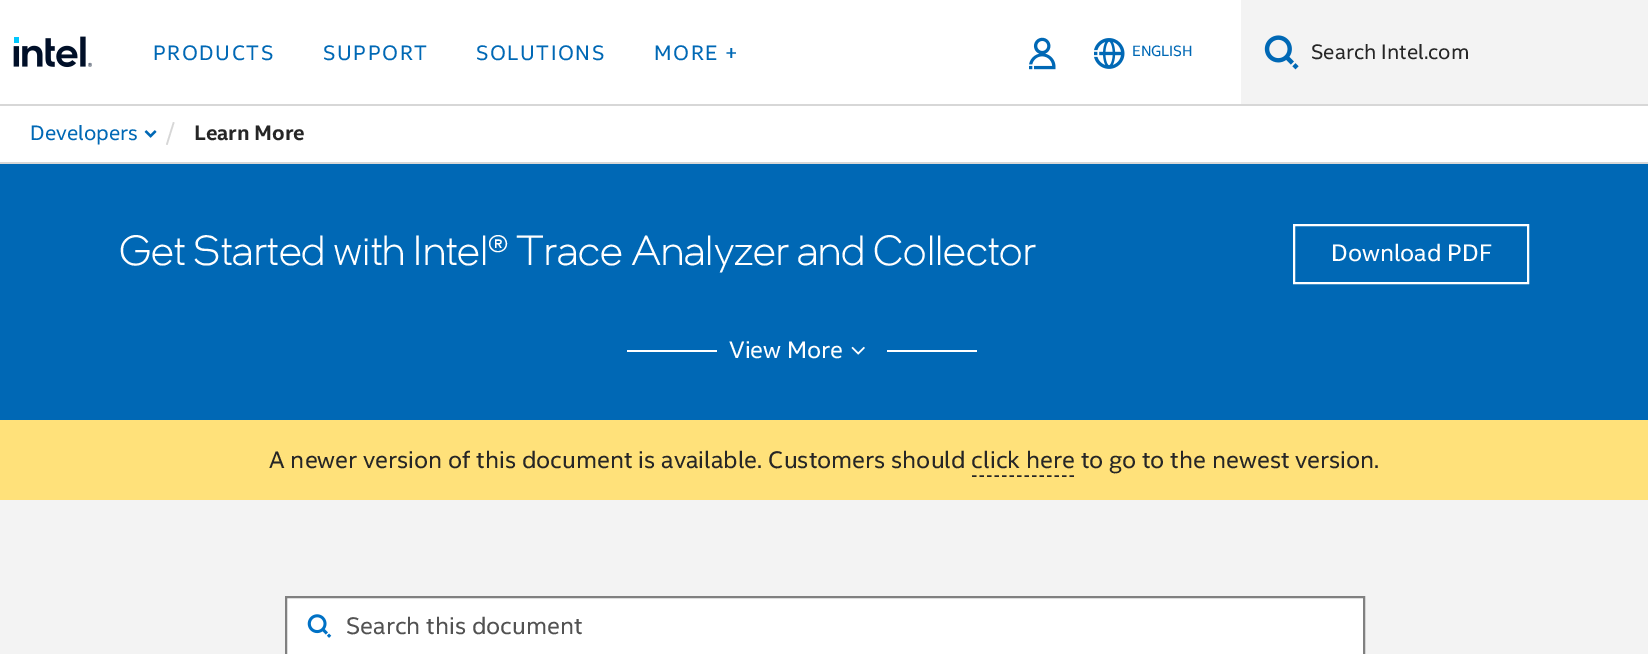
%!PS-Adobe-3.0
%%BoundingBox: 0 0 1648 654
%%LanguageLevel: 3
%%Pages: 1
%%EndComments
%%BeginProlog
/m { moveto } bind def
/l { lineto } bind def
/h { closepath } bind def
/f { fill } bind def
/S { stroke } bind def
/q { gsave } bind def
/Q { grestore } bind def
/w { setlinewidth } bind def
/fn { [ exch dup neg 0 0 3 -1 roll 0 0 ] selectfont } def
/tx { moveto show } def
/bx { rectfill } def
/im { 5 dict begin { /h /w /y /x /name } { exch def } forall
  gsave x y translate w h scale
  w h 8 [w 0 0 h 0 0] name (r) file false 3 colorimage grestore end } def
%%EndProlog
%%BeginSetup
<< /PageSize [1648 654] >> setpagedevice
%%EndSetup
%%Page: 1 1
0 654 translate 1 -1 scale
4 setmiterlimit
1 setgray
0 0 1648 654 bx
0.843 setgray
0 104 1648 2 bx
(image0.raw) 13 36 79 32 im
/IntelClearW-Regular 21 fn
0 0.408 0.71 setrgbcolor
153 60 m 1.5 0 (PRODUCTS) ashow
323 60 m 1.5 0 (SUPPORT) ashow
476 60 m 1.5 0 (SOLUTIONS) ashow
654 60 m 1.5 0 (MORE +) ashow
(image1.raw) 1029 37 27 33 im
(image2.raw) 1094 38 31 31 im
/IntelClearW-Regular 15 fn
(ENGLISH) 1132 56 tx
0.953 setgray
1241 0 407 104 bx
(image3.raw) 1264 35 35 35 im
/IntelClearW-Regular 21 fn
0.149 setgray
(Search Intel.com) 1311 59 tx
0.843 setgray
0 162 1648 2 bx
0 0.408 0.71 setrgbcolor
(Developers) 30 140 tx
(image4.raw) 144 130 13 8 im
0.843 setgray
173 122 m 174.5 122.5 l 167.5 145 l 166 144.5 l h f
/IntelClearW-Bold 21 fn
0.149 setgray
(Learn More) 194 140 tx
0 0.408 0.71 setrgbcolor
0 164 1648 256 bx
/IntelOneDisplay-Light 42 fn
1 setgray
(Get Started with Intel® Trace Analyzer and Collector) 119 265 tx
2 w
1294 225 234 58 rectstroke
/IntelClearW-Regular 24 fn
(Download PDF) 1331 261 tx
627 350 90 2 bx
(View More) 729 358 tx
(image5.raw) 851 346 14 9 im
887 350 90 2 bx
1 0.882 0.478 setrgbcolor
0 420 1648 80 bx
0.149 setgray
(A newer version of this document is available. Customers should click here to go to the newest version.) 269 468 tx
1.5 w
[4.5 3] 0 setdash
972 476 m 1074 476 l S
0.953 setgray
0 500 1648 154 bx
1 setgray
286 597 m 1364 597 l 1364 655 l 286 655 l h q f Q
0.502 setgray
2 w
[] 0 setdash
S
(image6.raw) 307 614 25 24 im
0.322 setgray
(Search this document) 346 634 tx
showpage
%%EOF
